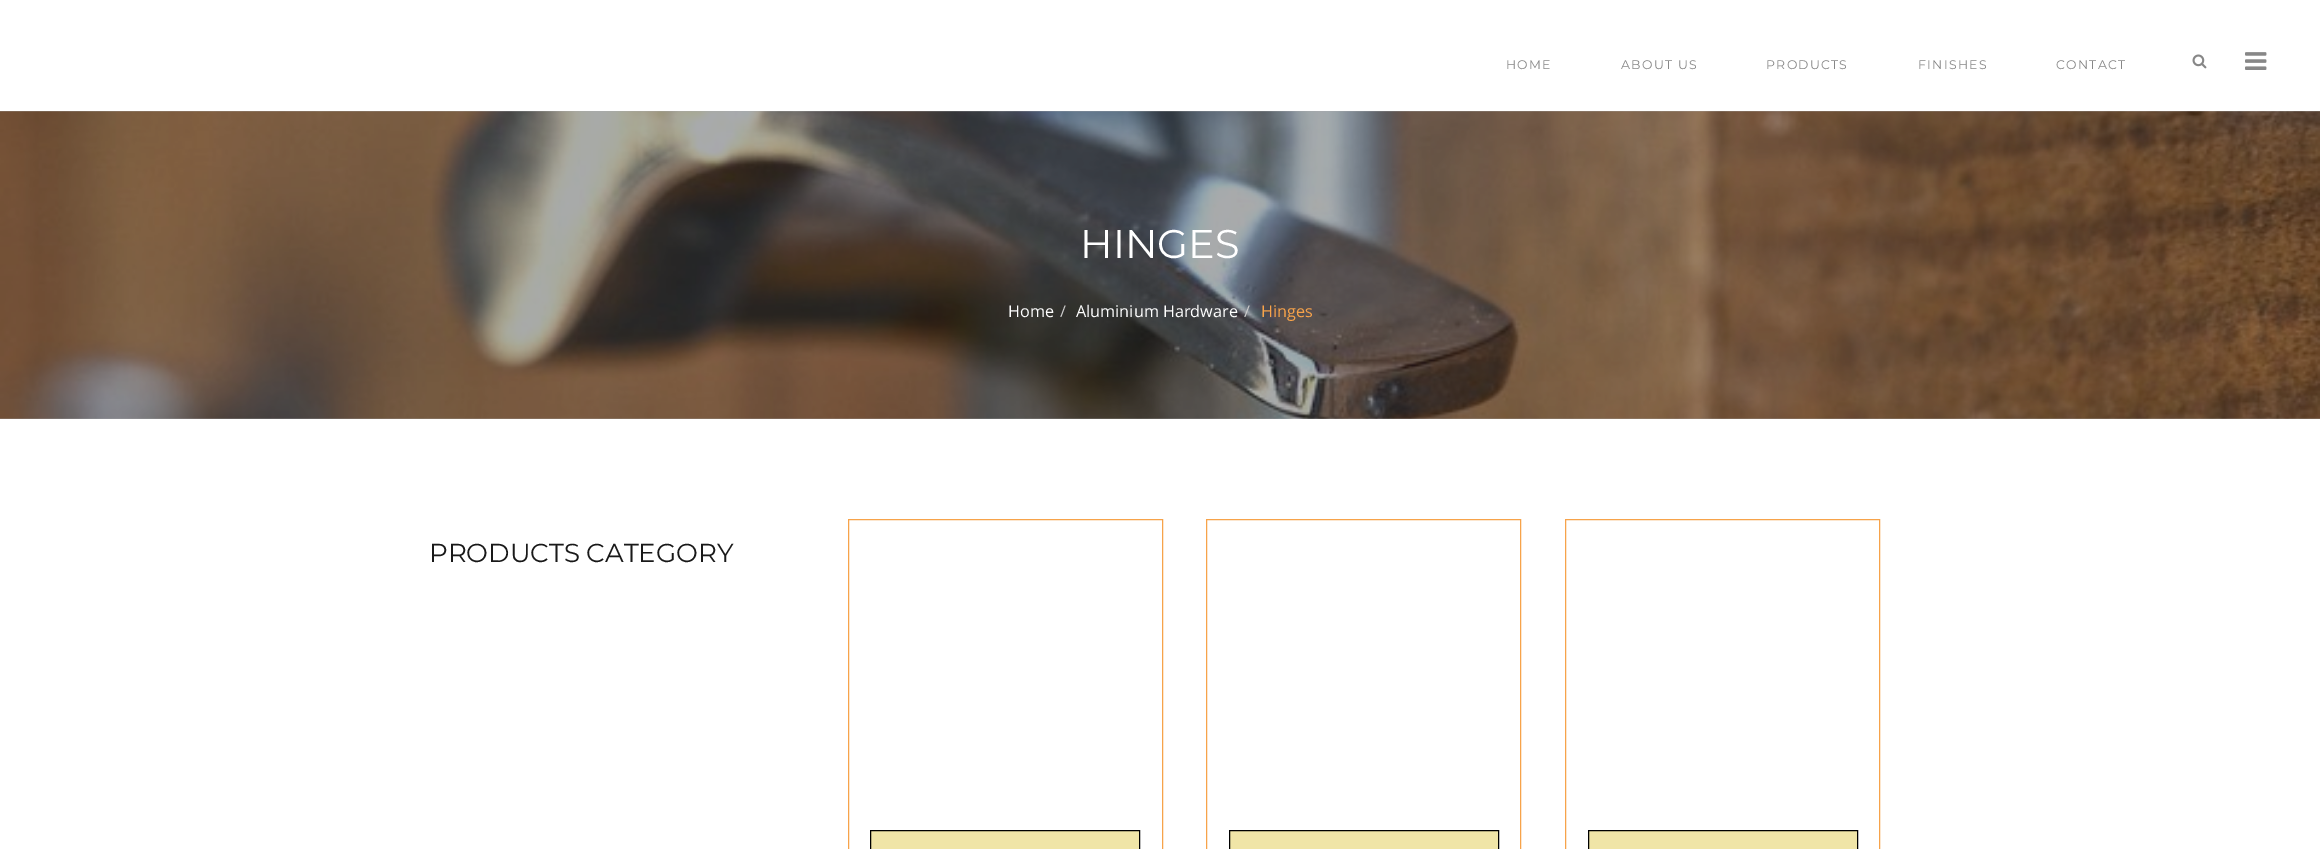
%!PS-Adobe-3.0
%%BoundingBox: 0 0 2320 849
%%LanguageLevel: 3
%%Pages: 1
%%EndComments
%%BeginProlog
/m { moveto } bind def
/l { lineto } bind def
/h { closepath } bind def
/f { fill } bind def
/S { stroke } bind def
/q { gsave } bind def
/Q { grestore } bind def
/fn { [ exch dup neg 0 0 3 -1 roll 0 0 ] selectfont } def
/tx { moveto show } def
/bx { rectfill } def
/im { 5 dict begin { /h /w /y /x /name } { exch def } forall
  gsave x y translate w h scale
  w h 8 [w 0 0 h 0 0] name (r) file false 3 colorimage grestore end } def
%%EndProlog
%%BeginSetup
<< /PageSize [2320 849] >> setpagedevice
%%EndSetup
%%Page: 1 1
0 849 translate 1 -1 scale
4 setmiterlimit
1 setgray
0 0 2320 849 bx
/Montserrat-Regular 12.5 fn
0.529 setgray
1506 69 m 1.25 0 (HOME) ashow
1621 69 m 1.25 0 (ABOUT US) ashow
1766 69 m 1.25 0 (PRODUCTS) ashow
1918 69 m 1.25 0 (FINISHES) ashow
2056 69 m 1.25 0 (CONTACT) ashow
(image0.raw) 2192 54 15 15 im
(image1.raw) 2245 52 22 18 im
(image2.raw) 0 111 2320 308 im
/Montserrat-Regular 40 fn
1 setgray
(HINGES) 1080 258 tx
/OpenSans-Regular 16.25 fn
(Home) 1008 317 tx
0.8 setgray
(/) 1060 317 tx
1 setgray
(Aluminium Hardware) 1076 317 tx
0.8 setgray
(/) 1244 317 tx
0.969 0.639 0.29 setrgbcolor
(Hinges) 1261 317 tx
/Montserrat-Regular 26 fn
0.098 setgray
(PRODUCTS CATEGORY) 429 562 tx
0.969 0.639 0.29 setrgbcolor
848.5 519.5 314 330 rectstroke
0.941 0.898 0.655 setrgbcolor
870.5 830.5 m 1139.5 830.5 l 1139.5 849.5 l 870.5 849.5 l h q f Q
0 setgray
S
0.969 0.639 0.29 setrgbcolor
1206.5 519.5 314 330 rectstroke
0.941 0.898 0.655 setrgbcolor
1229.5 830.5 m 1498.5 830.5 l 1498.5 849.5 l 1229.5 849.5 l h q f Q
0 setgray
S
0.969 0.639 0.29 setrgbcolor
1565.5 519.5 314 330 rectstroke
0.941 0.898 0.655 setrgbcolor
1588.5 830.5 m 1857.5 830.5 l 1857.5 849.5 l 1588.5 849.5 l h q f Q
0 setgray
S
showpage
%%EOF
